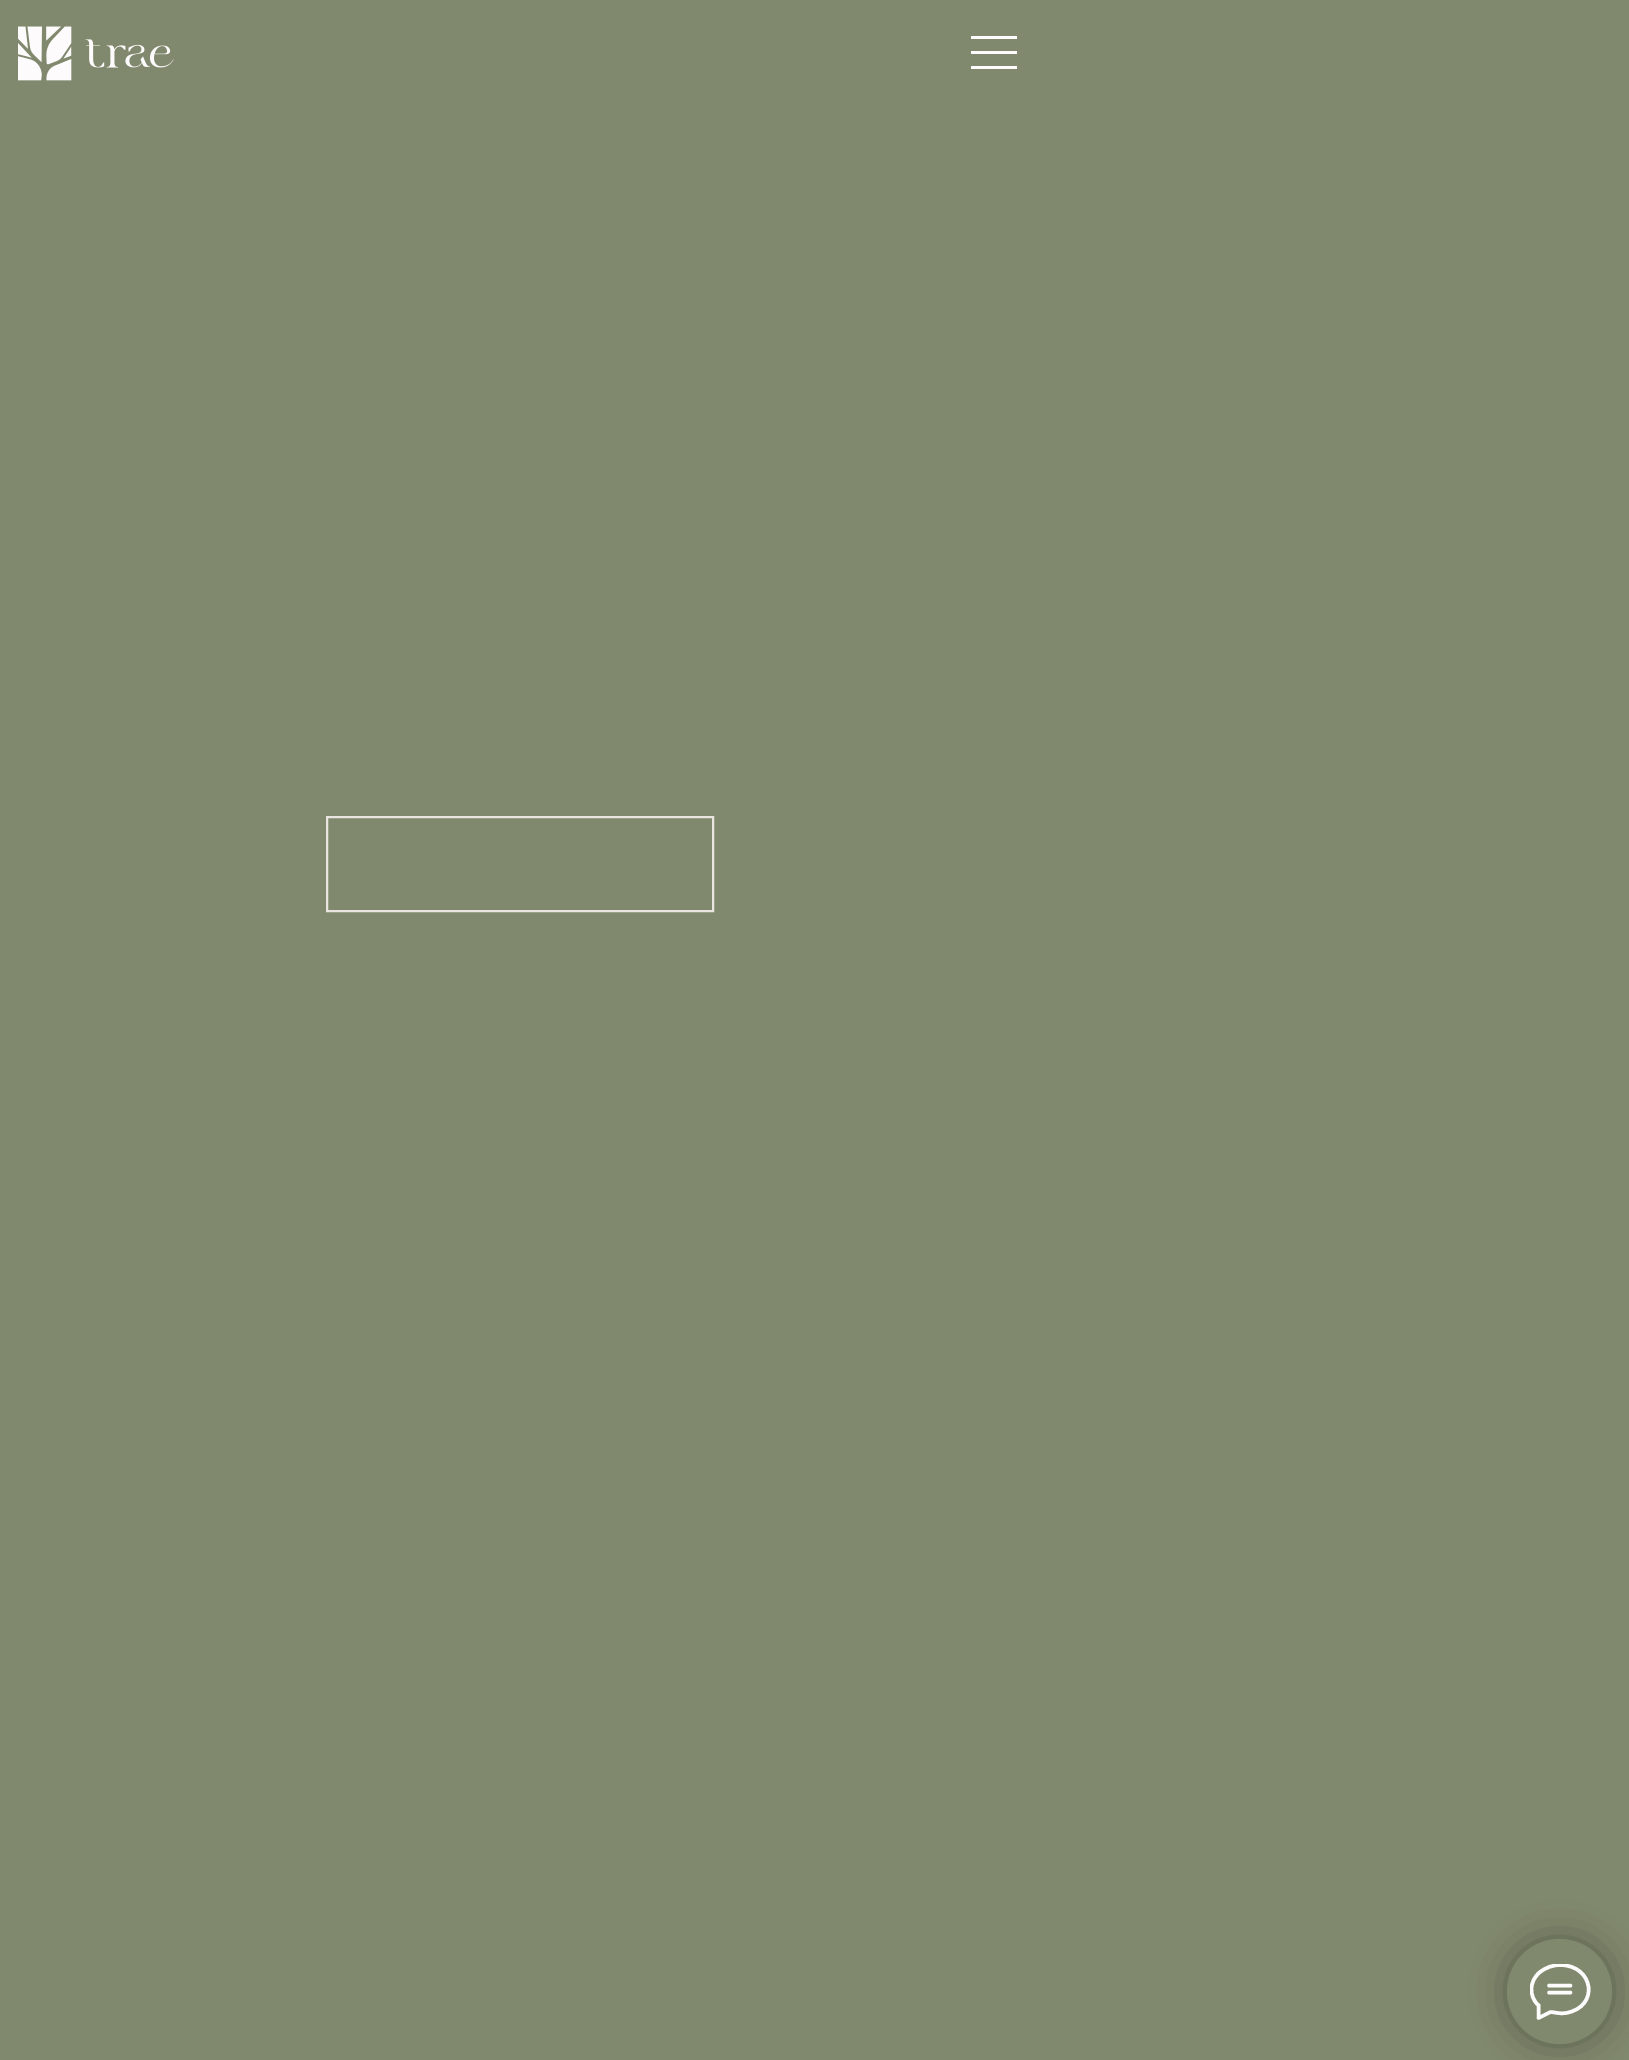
%!PS-Adobe-3.0
%%BoundingBox: 0 0 1629 2060
%%LanguageLevel: 3
%%Pages: 1
%%EndComments
%%BeginProlog
/m { moveto } bind def
/l { lineto } bind def
/c { curveto } bind def
/h { closepath } bind def
/f { fill } bind def
/S { stroke } bind def
/q { gsave } bind def
/Q { grestore } bind def
/w { setlinewidth } bind def
/bx { rectfill } def
/al { dup .setfillconstantalpha .setstrokeconstantalpha } def
/ci { newpath 0 360 arc closepath } def
/rr { 5 dict begin { /r /h /w /y /x } { exch def } forall
  x r add y moveto x w add y 2 copy h add r arct x w add y h add x 1 index r arct
  x y h add x y r arct x y 2 copy exch w add exch r arct closepath end } def
/sh { 12 dict begin { /a /b /q /h /w /y /x } { exch def } forall gsave /was 0 def
  9 -2 -9 { dup b mul 4 div /e exch def 1 sub .425 mul 2.718 exch exp 1 add a .99 .min exch div /now exch def
    1 1 now sub 1 was sub div sub al /was now def
    w h .min e 2 mul add 0 gt { x e sub y e sub w e 2 mul add h e 2 mul add
      q e add b .6 mul add w h .min 2 div e add .min 0 .max rr fill } if } for grestore end } def
/im { 5 dict begin { /h /w /y /x /name } { exch def } forall
  gsave x y translate w h scale
  w h 8 [w 0 0 h 0 0] name (r) file false 3 colorimage grestore end } def
%%EndProlog
%%BeginSetup
<< /PageSize [1629 2060] /PageUsesTransparency true >> setpagedevice
%%EndSetup
%%Page: 1 1
0 .pushpdf14devicefilter
0 2060 translate 1 -1 scale
4 setmiterlimit
0.502 0.533 0.427 setrgbcolor
0 0 1629 2060 bx
(image0.raw) 18 26 156 55 im
0.992 0.984 0.984 setrgbcolor
971 36 m 1017 36 l 1017 39 l 971 39 l h 971 51 m 1017 51 l 1017 54 l 971 54 l h 971 66 m 1017 66 l 1017 69 l 971 69 l h f
0.914 0.898 0.878 setrgbcolor
2 w
327 817 386 94 rectstroke
0 setgray
1507 1939 105 105 52.5 17.5 0.3 sh
0.502 0.533 0.427 setrgbcolor
1559.5 1991.5 52.5 ci f
q
1530 1964 61 56 rectclip
0.988 setgray
3.5 w
1 setlinecap
1 setlinejoin
1549 1985.5 m 1570.5 1985.5 l 1549 1992.5 m 1570.5 1992.5 l 1538 2005 m 1528.5 1995.5 1529.5 1981 1539.5 1972.5 c 1545.5 1967.5 1553 1965 1560 1965 c 1594 1965 1600 2007 1566 2013 c 1559.5 2014 1556.5 2012.5 1550.5 2012 c 1538.5 2018 l 1538.5 2005 l h S
Q
.poppdf14devicefilter showpage
%%EOF
